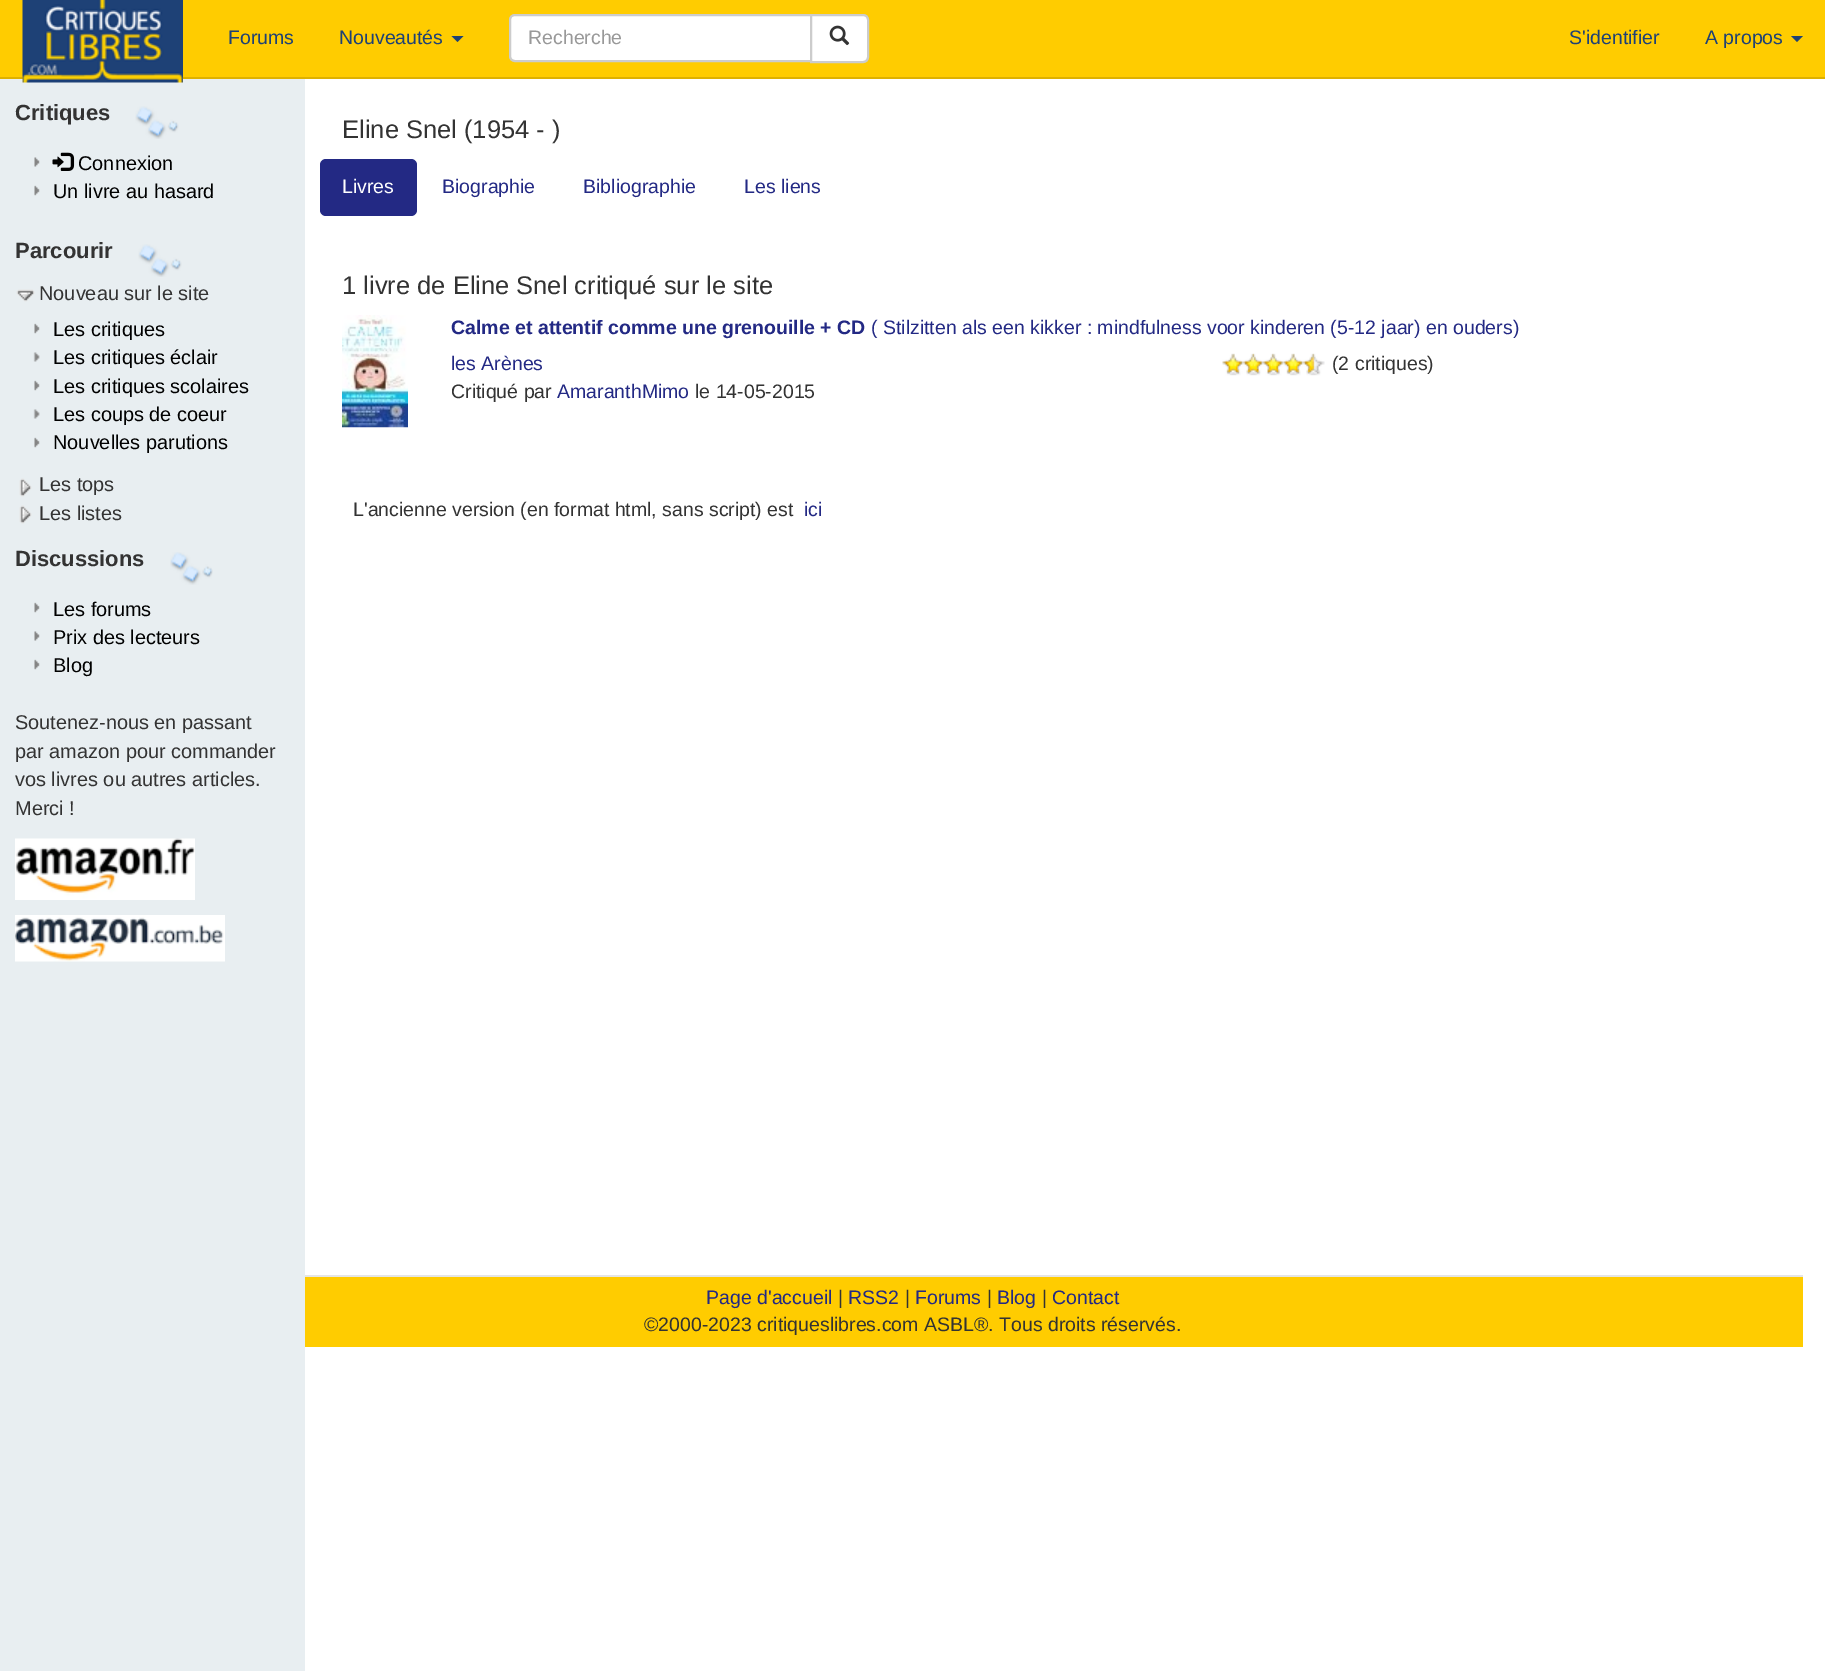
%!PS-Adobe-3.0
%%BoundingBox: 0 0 1825 1671
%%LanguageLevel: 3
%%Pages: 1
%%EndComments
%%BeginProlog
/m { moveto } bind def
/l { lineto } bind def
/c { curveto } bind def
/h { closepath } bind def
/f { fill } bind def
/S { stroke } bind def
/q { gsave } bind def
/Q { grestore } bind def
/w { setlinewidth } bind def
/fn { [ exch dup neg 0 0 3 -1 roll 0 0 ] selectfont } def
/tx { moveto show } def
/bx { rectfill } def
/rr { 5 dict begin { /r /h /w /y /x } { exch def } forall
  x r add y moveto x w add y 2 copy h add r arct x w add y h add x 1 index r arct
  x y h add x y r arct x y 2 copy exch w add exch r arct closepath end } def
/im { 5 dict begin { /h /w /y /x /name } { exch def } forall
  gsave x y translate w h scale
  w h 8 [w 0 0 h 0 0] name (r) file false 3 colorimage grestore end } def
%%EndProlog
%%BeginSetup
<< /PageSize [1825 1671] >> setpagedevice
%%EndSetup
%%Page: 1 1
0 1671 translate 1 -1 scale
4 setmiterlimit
1 setgray
0 0 1825 1671 bx
1 0.8 0 setrgbcolor
0 0 1825 77 bx
0.871 0.694 0 setrgbcolor
0 77 1825 2 bx
0.91 0.933 0.945 setrgbcolor
0 79 305 1592 bx
(image0.raw) 22 0 161 83 im
/LiberationSans-Regular 19.5 fn
0.118 0.255 0.463 setrgbcolor
(Forums) 228 44 tx
(Nouveautés) 339 44 tx
451.5 36 m 463.5 36 l 457.5 42 l h f
1 setgray
515 15 m 811 15 l 811 61 l 515 61 l 512 61 510 59 510 56 c 510 20 l 510 17 512 15 515 15 c h q f Q
0.8 setgray
2 w
S
0.6 setgray
(Recherche) 528 44 tx
1 setgray
811 15 m 863 15 l 866 15 868 17 868 20 c 868 57 l 868 60 866 62 863 62 c 811 62 l h q f Q
0.8 setgray
S
(image1.raw) 829 25 21 21 im
0.118 0.255 0.463 setrgbcolor
(S'identifier) 1569 44 tx
(A propos) 1705 44 tx
1791 36 m 1803 36 l 1797 42 l h f
/LiberationSans-Bold 22 fn
0.2 setgray
(Critiques) 15 120 tx
(image2.raw) 135 106 44 33 im
(image3.raw) 34 157 6 10 im
(image4.raw) 52 152 23 19 im
/LiberationSans-Regular 19.9 fn
0 setgray
(Connexion) 78 170 tx
(image5.raw) 34 185 6 11 im
(Un livre au hasard) 53 198 tx
/LiberationSans-Bold 22 fn
0.2 setgray
(Parcourir) 15 258 tx
(image2.raw) 138 244 44 33 im
(image6.raw) 16 289 19 13 im
/LiberationSans-Regular 19.9 fn
(Nouveau sur le site) 39 300 tx
(image5.raw) 34 323 6 11 im
0 setgray
(Les critiques) 53 336 tx
(image7.raw) 33 352 7 10 im
(Les critiques éclair) 53 364 tx
(image5.raw) 34 380 6 11 im
(Les critiques scolaires) 53 393 tx
(image7.raw) 33 409 7 10 im
(Les coups de coeur) 53 421 tx
(image5.raw) 34 437 6 11 im
(Nouvelles parutions) 53 449 tx
(image8.raw) 19 478 13 19 im
0.2 setgray
(Les tops) 39 491 tx
(image8.raw) 19 505 13 19 im
(Les listes) 39 520 tx
/LiberationSans-Bold 22 fn
(Discussions) 15 566 tx
(image9.raw) 170 552 43 33 im
(image5.raw) 34 602 6 11 im
/LiberationSans-Regular 19.9 fn
0 setgray
(Les forums) 53 616 tx
(image3.raw) 34 631 6 10 im
(Prix des lecteurs) 53 644 tx
(image5.raw) 34 659 6 11 im
(Blog) 53 672 tx
0.2 setgray
(Soutenez-nous en passant) 15 729 tx
(par amazon pour commander) 15 758 tx
(vos livres ou autres articles.) 15 786 tx
(Merci !) 15 815 tx
(image10.raw) 15 838 180 62 im
(image11.raw) 15 915 210 47 im
/LiberationSans-Regular 25.5 fn
(Eline Snel \(1954 - \)) 342 138 tx
0.137 0.161 0.518 setrgbcolor
320 159 97 57 6 rr f
/LiberationSans-Regular 19.5 fn
1 setgray
(Livres) 342 193 tx
0.137 0.161 0.518 setrgbcolor
(Biographie) 442 193 tx
(Bibliographie) 583 193 tx
(Les liens) 744 193 tx
/LiberationSans-Regular 25.5 fn
0.2 setgray
(1 livre de Eline Snel critiqué sur le site) 342 294 tx
(image12.raw) 342 315 66 113 im
/LiberationSans-Bold 19.5 fn
0.137 0.161 0.518 setrgbcolor
(Calme et attentif comme une grenouille + CD) 451 334 tx
/LiberationSans-Regular 19.5 fn
(\( Stilzitten als een kikker : mindfulness voor kinderen \(5-12 jaar\) en ouders\)) 871 334 tx
(les Arènes) 451 370 tx
0.2 setgray
(Critiqué par) 451 398 tx
0.137 0.161 0.518 setrgbcolor
(AmaranthMimo) 557 398 tx
0.2 setgray
(le 14-05-2015) 695 398 tx
(image13.raw) 1222 353 103 23 im
(\(2 critiques\)) 1332 370 tx
(L'ancienne version \(en format html, sans script\) est) 353 516 tx
0.137 0.161 0.518 setrgbcolor
(ici) 804 516 tx
1 0.8 0 setrgbcolor
305 1277 1498 70 bx
0.898 setgray
305 1275 1498 2 bx
0.137 0.161 0.518 setrgbcolor
(Page d'accueil) 706 1304 tx
0.2 setgray
(|) 838 1304 tx
0.137 0.161 0.518 setrgbcolor
(RSS2) 848 1304 tx
0.2 setgray
(|) 905 1304 tx
0.137 0.161 0.518 setrgbcolor
(Forums) 915 1304 tx
0.2 setgray
(|) 987 1304 tx
0.137 0.161 0.518 setrgbcolor
(Blog) 997 1304 tx
0.2 setgray
(|) 1042 1304 tx
0.137 0.161 0.518 setrgbcolor
(Contact) 1052 1304 tx
0.2 setgray
(©2000-2023 critiqueslibres.com ASBL®. Tous droits réservés.) 644 1331 tx
showpage
%%EOF
